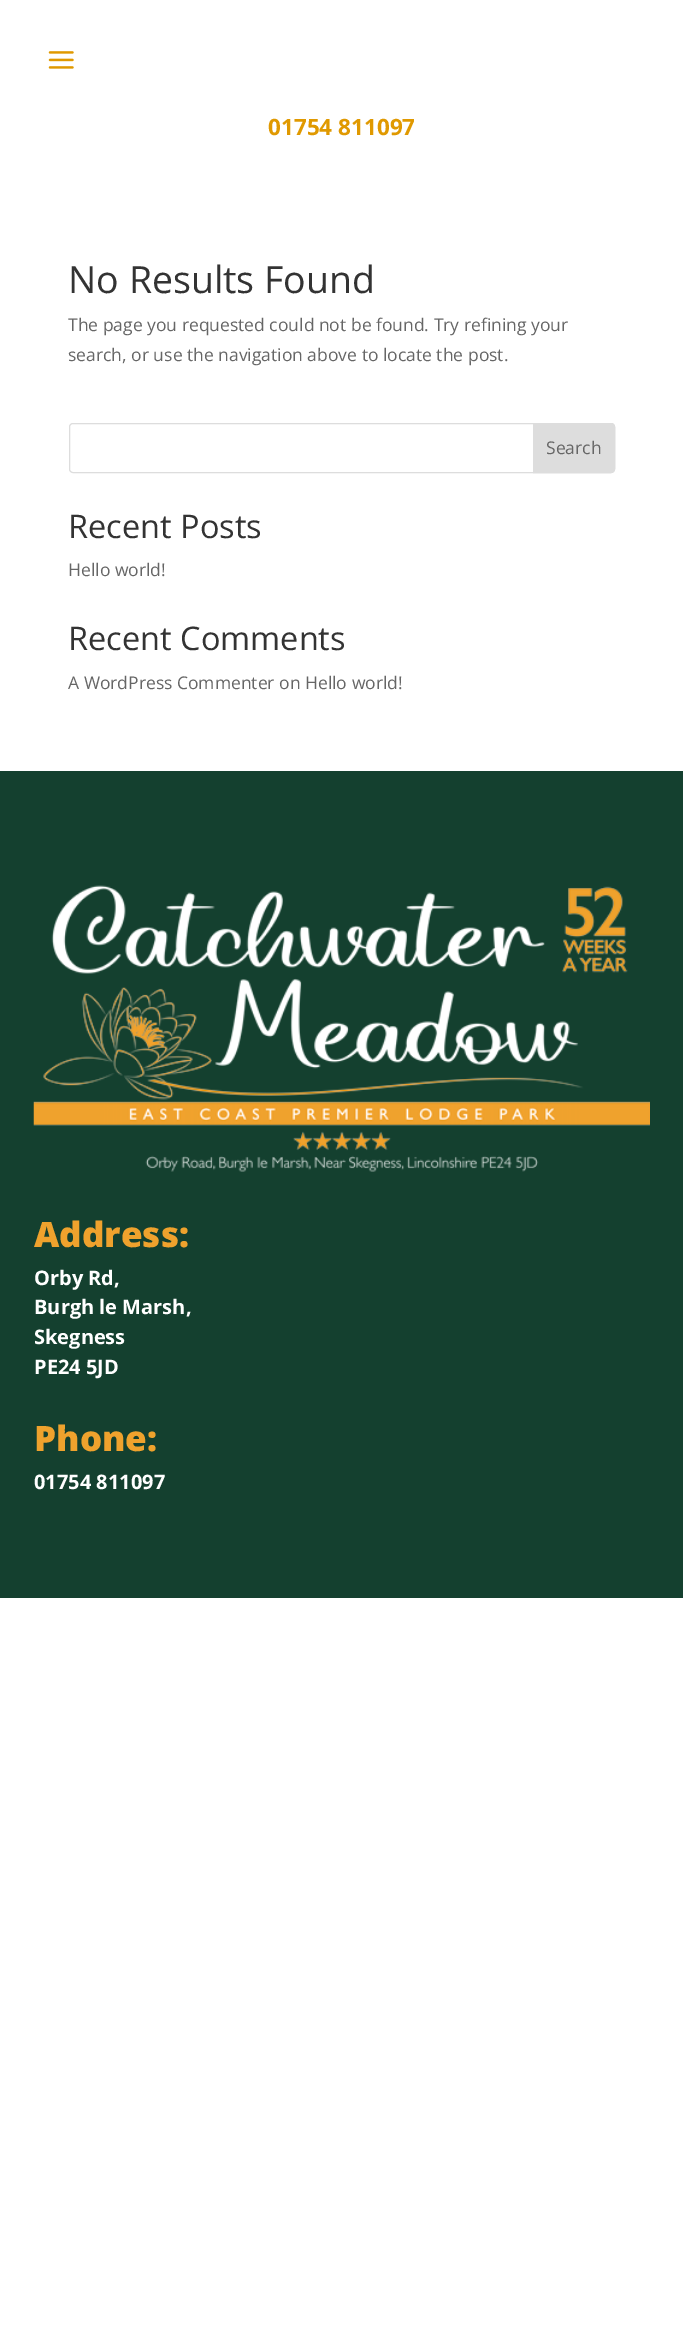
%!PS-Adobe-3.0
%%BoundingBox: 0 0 683 2340
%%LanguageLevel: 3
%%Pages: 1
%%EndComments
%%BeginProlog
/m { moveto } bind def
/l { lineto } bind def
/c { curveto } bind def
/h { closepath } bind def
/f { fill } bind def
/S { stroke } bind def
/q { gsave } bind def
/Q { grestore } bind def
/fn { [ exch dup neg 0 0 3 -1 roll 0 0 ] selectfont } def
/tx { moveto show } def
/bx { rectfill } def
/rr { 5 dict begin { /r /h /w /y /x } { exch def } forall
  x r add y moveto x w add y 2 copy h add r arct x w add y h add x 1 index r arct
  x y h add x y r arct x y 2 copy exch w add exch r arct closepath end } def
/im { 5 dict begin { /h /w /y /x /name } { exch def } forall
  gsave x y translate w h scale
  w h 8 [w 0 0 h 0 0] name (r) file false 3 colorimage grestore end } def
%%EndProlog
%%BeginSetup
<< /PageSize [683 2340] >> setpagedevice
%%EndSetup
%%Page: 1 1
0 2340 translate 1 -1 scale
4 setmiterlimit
1 setgray
0 0 683 2340 bx
(image0.raw) 48 51 26 18 im
/OpenSans-Bold 22.5 fn
0.878 0.6 0 setrgbcolor
(01754 811097) 268 135 tx
/OpenSans-Regular 37.5 fn
0.2 setgray
(No Results Found) 68 293 tx
/OpenSans-Regular 17.5 fn
0.4 setgray
(The page you requested could not be found. Try refining your) 68 331 tx
(search, or use the navigation above to locate the post.) 68 361 tx
0.867 setgray
69.5 423.5 545 49 3.5 rr S
533.5 423.5 m 611 423.5 l 613 423.5 614.5 425 614.5 427 c 614.5 469 l 614.5 471 613 472.5 611 472.5 c 533.5 472.5 l h q f Q
S
0.4 setgray
(Search) 546 454 tx
/OpenSans-Regular 32.5 fn
0.2 setgray
(Recent Posts) 68 538 tx
/OpenSans-Regular 17.5 fn
0.4 setgray
(Hello world!) 68 576 tx
/OpenSans-Regular 32.5 fn
0.2 setgray
(Recent Comments) 68 650 tx
/OpenSans-Regular 17.5 fn
0.4 setgray
(A WordPress Commenter on Hello world!) 68 689 tx
0.078 0.251 0.184 setrgbcolor
0 771 683 827 bx
(image1.raw) 33 885 617 287 im
/OpenSans-ExtraBold 35 fn
0.937 0.635 0.176 setrgbcolor
(Address:) 34 1247 tx
/OpenSans-Bold 20 fn
1 setgray
(Orby Rd,) 34 1285 tx
(Burgh le Marsh,) 34 1314 tx
(Skegness) 34 1344 tx
(PE24 5JD) 34 1374 tx
/OpenSans-ExtraBold 35 fn
0.937 0.635 0.176 setrgbcolor
(Phone:) 34 1451 tx
/OpenSans-Bold 20 fn
1 setgray
(01754 811097) 34 1489 tx
showpage
%%EOF
